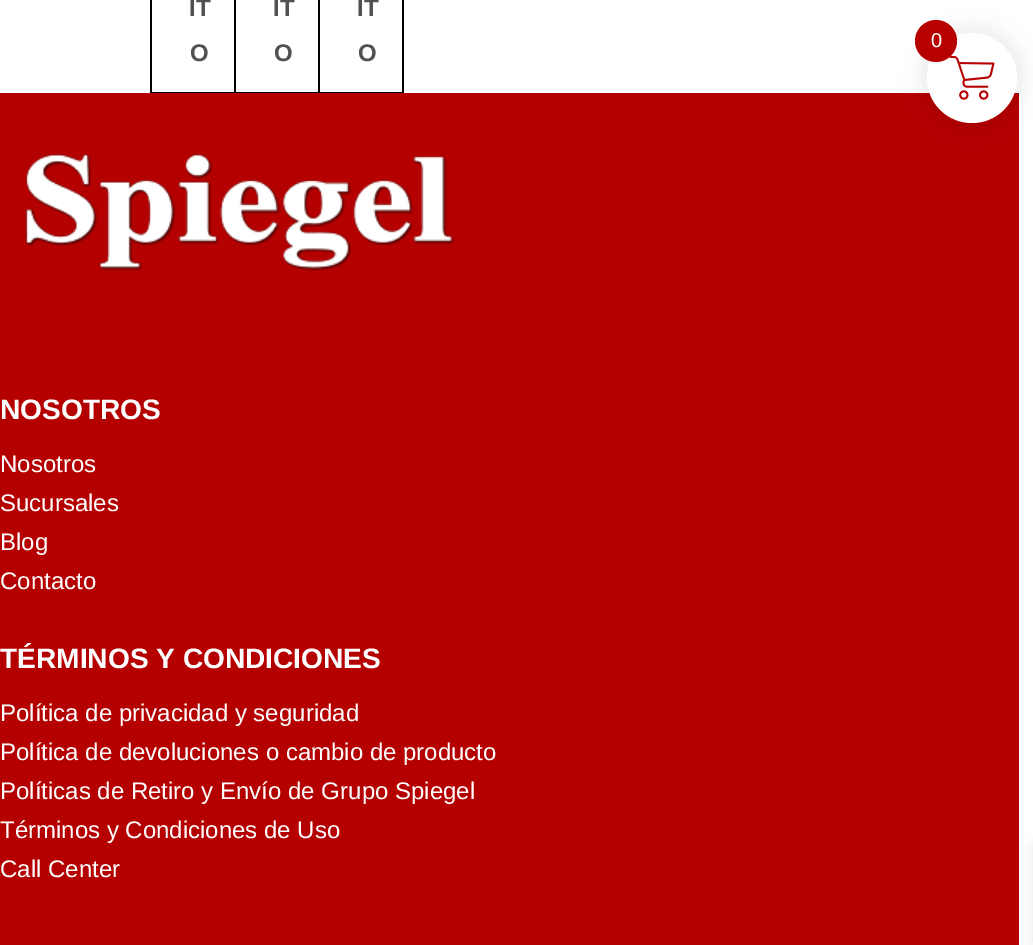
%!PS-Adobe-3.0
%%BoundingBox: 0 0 1033 945
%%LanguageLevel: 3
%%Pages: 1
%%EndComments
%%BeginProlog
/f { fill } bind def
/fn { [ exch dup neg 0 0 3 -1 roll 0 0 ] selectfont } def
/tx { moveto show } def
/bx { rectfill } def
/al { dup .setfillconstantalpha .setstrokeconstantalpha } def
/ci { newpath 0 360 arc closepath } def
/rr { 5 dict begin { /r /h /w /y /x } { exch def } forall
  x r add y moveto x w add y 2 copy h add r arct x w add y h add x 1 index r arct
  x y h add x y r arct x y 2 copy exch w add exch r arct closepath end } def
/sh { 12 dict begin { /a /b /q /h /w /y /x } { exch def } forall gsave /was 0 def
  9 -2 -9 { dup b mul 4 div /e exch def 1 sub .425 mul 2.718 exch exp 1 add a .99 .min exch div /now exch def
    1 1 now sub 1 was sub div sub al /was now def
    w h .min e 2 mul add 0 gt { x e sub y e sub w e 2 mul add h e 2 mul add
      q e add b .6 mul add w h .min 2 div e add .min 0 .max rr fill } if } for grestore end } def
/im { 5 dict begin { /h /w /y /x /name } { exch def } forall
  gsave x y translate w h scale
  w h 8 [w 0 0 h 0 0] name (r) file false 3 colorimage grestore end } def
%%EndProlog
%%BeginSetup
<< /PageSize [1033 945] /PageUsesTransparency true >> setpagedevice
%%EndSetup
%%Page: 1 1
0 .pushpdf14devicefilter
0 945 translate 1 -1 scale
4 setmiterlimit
1 setgray
0 0 1033 945 bx
0 setgray
150 0 2 93 bx
234 0 2 93 bx
152 92 84 1 bx
/LiberationSans-Bold 24 fn
0.318 setgray
(IT) 189 16 tx
(O) 190 61 tx
0 setgray
318 0 2 93 bx
236 92 84 1 bx
0.318 setgray
(IT) 273 16 tx
(O) 274 61 tx
0 setgray
402 0 2 93 bx
320 92 84 1 bx
0.318 setgray
(IT) 357 16 tx
(O) 358 61 tx
0.71 0 0 setrgbcolor
0 93 1019 852 bx
0 setgray
924 30 96 96 48 11 0.1 sh
1 setgray
972 78 45 ci f
(image0.raw) 949 55 46 45 im
0.718 0 0 setrgbcolor
936 41 21 ci f
/LiberationSans-Regular 20 fn
1 setgray
(0) 931 47 tx
0 setgray
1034 846 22 98 0 7.5 0.1 sh
(image1.raw) 25 153 430 119 im
/LiberationSans-Bold 28.1 fn
1 setgray
(NOSOTROS) 0 419 tx
/LiberationSans-Regular 24 fn
(Nosotros) 0 472 tx
(Sucursales) 0 511 tx
(Blog) 0 550 tx
(Contacto) 0 589 tx
/LiberationSans-Bold 28.1 fn
(TÉRMINOS Y CONDICIONES) 0 668 tx
/LiberationSans-Regular 24 fn
(Política de privacidad y seguridad) 0 721 tx
(Política de devoluciones o cambio de producto) 0 760 tx
(Políticas de Retiro y Envío de Grupo Spiegel) 0 799 tx
(Términos y Condiciones de Uso) 0 838 tx
(Call Center) 0 877 tx
.poppdf14devicefilter showpage
%%EOF
